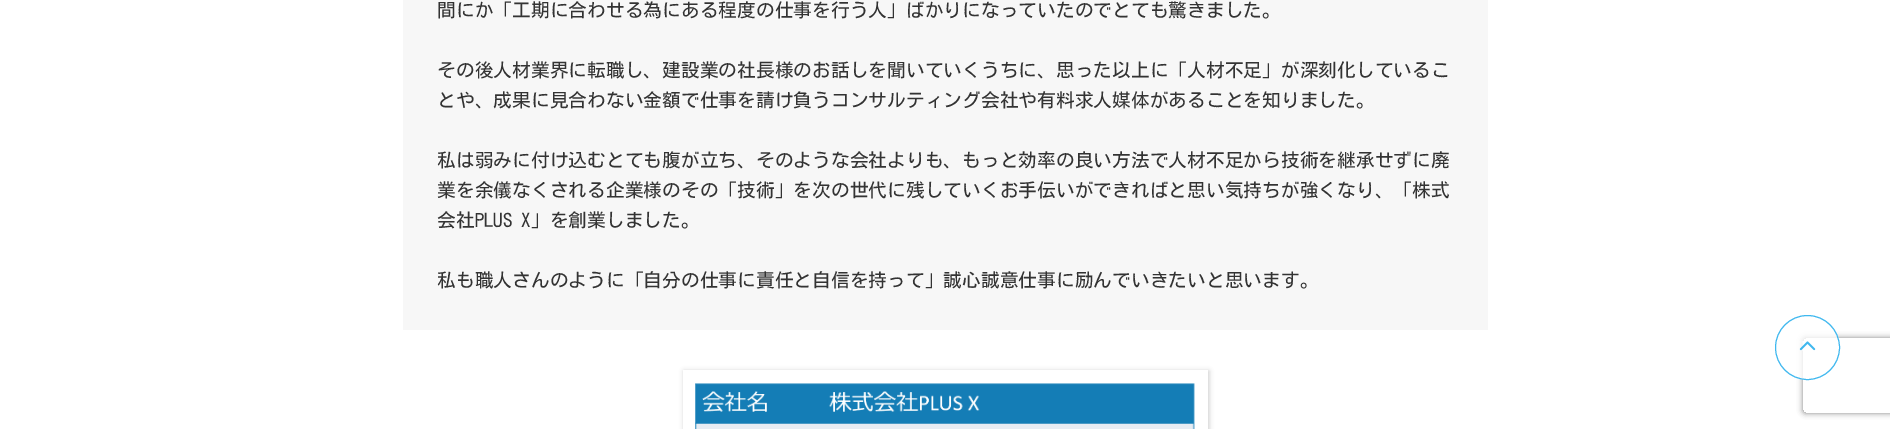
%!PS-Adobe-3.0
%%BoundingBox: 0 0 1890 429
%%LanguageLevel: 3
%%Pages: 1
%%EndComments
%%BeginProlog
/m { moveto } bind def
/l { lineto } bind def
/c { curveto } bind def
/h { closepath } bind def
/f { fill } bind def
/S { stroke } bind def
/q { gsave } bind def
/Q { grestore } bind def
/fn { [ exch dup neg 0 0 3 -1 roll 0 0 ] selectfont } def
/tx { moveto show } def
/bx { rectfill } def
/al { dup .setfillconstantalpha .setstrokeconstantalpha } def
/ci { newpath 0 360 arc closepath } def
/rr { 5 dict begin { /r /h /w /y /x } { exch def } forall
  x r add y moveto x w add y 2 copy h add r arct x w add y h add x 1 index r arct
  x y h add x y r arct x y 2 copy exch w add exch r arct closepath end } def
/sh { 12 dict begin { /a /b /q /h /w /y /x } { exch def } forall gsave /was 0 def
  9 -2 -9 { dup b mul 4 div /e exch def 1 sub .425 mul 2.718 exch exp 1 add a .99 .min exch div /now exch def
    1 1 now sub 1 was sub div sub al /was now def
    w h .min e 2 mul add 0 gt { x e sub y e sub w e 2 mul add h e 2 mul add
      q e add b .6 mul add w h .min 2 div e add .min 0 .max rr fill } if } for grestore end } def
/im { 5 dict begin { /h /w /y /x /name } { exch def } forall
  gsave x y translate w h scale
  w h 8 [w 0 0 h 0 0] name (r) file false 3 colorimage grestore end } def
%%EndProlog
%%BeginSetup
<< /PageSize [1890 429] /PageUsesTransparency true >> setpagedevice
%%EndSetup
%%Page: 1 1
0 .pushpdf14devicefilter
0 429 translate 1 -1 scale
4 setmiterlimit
1 setgray
0 0 1890 429 bx
0.969 setgray
403 0 1085 330 bx
/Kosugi-Regular 18.75 fn
0.2 setgray
(間にか「工期に合わせる為にある程度の仕事を行う人」ばかりになっていたのでとても驚きました。) 437 17 tx
(その後人材業界に転職し、建設業の社長様のお話しを聞いていくうちに、思った以上に「人材不足」が深刻化しているこ) 437 77 tx
(とや、成果に見合わない金額で仕事を請け負うコンサルティング会社や有料求人媒体があることを知りました。) 437 107 tx
(私は弱みに付け込むとても腹が立ち、そのような会社よりも、もっと効率の良い方法で人材不足から技術を継承せずに廃) 437 167 tx
(業を余儀なくされる企業様のその「技術」を次の世代に残していくお手伝いができればと思い気持ちが強くなり、「株式) 437 197 tx
(会社PLUS X」を創業しました。) 437 227 tx
(私も職人さんのように「自分の仕事に責任と自信を持って」誠心誠意仕事に励んでいきたいと思います。) 437 287 tx
0 setgray
684 371 525 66 0 2.5 0.2 sh
1 setgray
683 370 525 59 bx
(image0.raw) 695 383 500 46 im
q
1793 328 m 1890 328 l 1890 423 l 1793 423 l h 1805.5 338 m 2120.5 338 l 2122 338 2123 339 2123 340.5 c 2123 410.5 l 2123 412 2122 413 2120.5 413 c 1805.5 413 l 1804 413 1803 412 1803 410.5 c 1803 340.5 l 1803 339 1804 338 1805.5 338 c h eoclip newpath
0.502 setgray
1803 338 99 75 2.5 3 1 sh
Q
0.75 al
1807.5 347.5 32.5 ci f
0 0.627 0.914 setrgbcolor
1807.5 347.5 32 ci S
1 al
(image1.raw) 1799 341 17 10 im
.poppdf14devicefilter showpage
%%EOF
